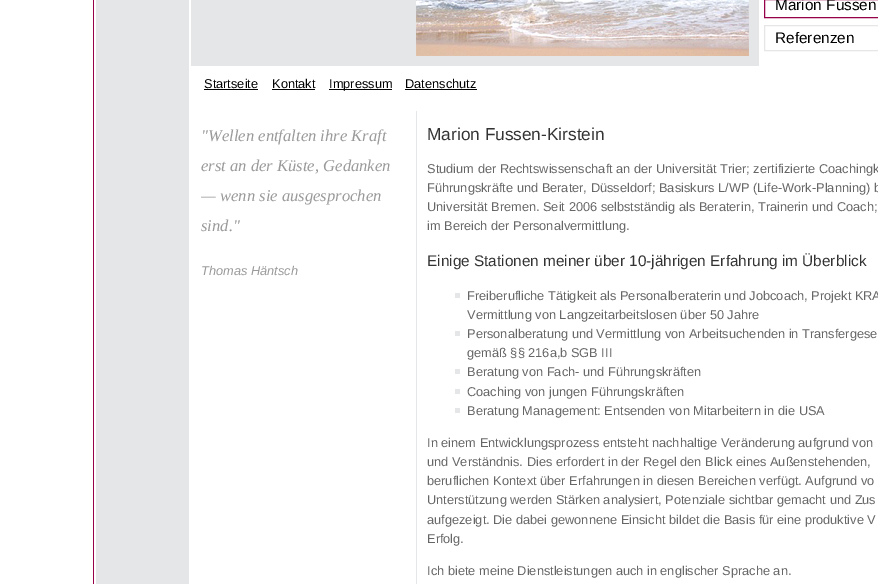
%!PS-Adobe-3.0
%%BoundingBox: 0 0 878 584
%%LanguageLevel: 3
%%Pages: 1
%%EndComments
%%BeginProlog
/fn { [ exch dup neg 0 0 3 -1 roll 0 0 ] selectfont } def
/tx { moveto show } def
/bx { rectfill } def
/im { 5 dict begin { /h /w /y /x /name } { exch def } forall
  gsave x y translate w h scale
  w h 8 [w 0 0 h 0 0] name (r) file false 3 colorimage grestore end } def
%%EndProlog
%%BeginSetup
<< /PageSize [878 584] >> setpagedevice
%%EndSetup
%%Page: 1 1
0 584 translate 1 -1 scale
4 setmiterlimit
1 setgray
0 0 878 584 bx
(image0.raw) 93 0 96 584 im
0.898 0.902 0.906 setrgbcolor
191 0 568 66 bx
(image1.raw) 416 0 333 56 im
0.588 0.008 0.29 setrgbcolor
764.5 -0.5 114 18 rectstroke
/LiberationSans-Regular 15.35 fn
0 setgray
(Marion Fussen) 775 10 tx
0.898 0.902 0.906 setrgbcolor
764.5 25.5 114 25 rectstroke
0 setgray
(Referenzen) 775 43 tx
/LiberationSans-Regular 12.8 fn
(Startseite) 204 88 tx
204 89 54 1 bx
(Kontakt) 272 88 tx
272 89 43 1 bx
329 89 63 1 bx
(Impressum) 329 88 tx
(Datenschutz) 405 88 tx
405 89 72 1 bx
/LiberationSerif-Italic 16.6 fn
0.608 0.604 0.608 setrgbcolor
("Wellen entfalten ihre Kraft) 201 141 tx
(erst an der Küste, Gedanken) 201 171 tx
(— wenn sie ausgesprochen) 201 201 tx
(sind.") 201 231 tx
/LiberationSans-Italic 12.8 fn
(Thomas Häntsch) 201 275 tx
0.898 0.902 0.906 setrgbcolor
416 111 1 473 bx
/LiberationSans-Regular 17.25 fn
0.2 setgray
(Marion Fussen-Kirstein) 427 140 tx
/LiberationSans-Regular 12.8 fn
0.4 setgray
(Studium der Rechtswissenschaft an der Universität Trier; zertifizierte Coachingk) 427 173 tx
(Führungskräfte und Berater, Düsseldorf; Basiskurs L/WP \(Life-Work-Planning\) b) 427 192 tx
(Universität Bremen. Seit 2006 selbstständig als Beraterin, Trainerin und Coach;) 427 211 tx
(im Bereich der Personalvermittlung.) 427 230 tx
/LiberationSans-Regular 15.35 fn
0.2 setgray
(Einige Stationen meiner über 10-jährigen Erfahrung im Überblick) 427 266 tx
0.898 0.902 0.906 setrgbcolor
455 293 5 5 bx
/LiberationSans-Regular 12.8 fn
0.4 setgray
(Freiberufliche Tätigkeit als Personalberaterin und Jobcoach, Projekt KRA) 467 300 tx
(Vermittlung von Langzeitarbeitslosen über 50 Jahre) 467 319 tx
0.898 0.902 0.906 setrgbcolor
455 331 5 5 bx
0.4 setgray
(Personalberatung und Vermittlung von Arbeitsuchenden in Transfergese) 467 338 tx
(gemäß §§ 216a,b SGB III) 467 357 tx
0.898 0.902 0.906 setrgbcolor
455 369 5 5 bx
0.4 setgray
(Beratung von Fach- und Führungskräften) 467 376 tx
0.898 0.902 0.906 setrgbcolor
455 389 5 5 bx
0.4 setgray
(Coaching von jungen Führungskräften) 467 396 tx
0.898 0.902 0.906 setrgbcolor
455 408 5 5 bx
0.4 setgray
(Beratung Management: Entsenden von Mitarbeitern in die USA) 467 415 tx
(In einem Entwicklungsprozess entsteht nachhaltige Veränderung aufgrund von) 427 447 tx
(und Verständnis. Dies erfordert in der Regel den Blick eines Außenstehenden,) 427 466 tx
(beruflichen Kontext über Erfahrungen in diesen Bereichen verfügt. Aufgrund vo) 427 485 tx
(Unterstützung werden Stärken analysiert, Potenziale sichtbar gemacht und Zus) 427 504 tx
(aufgezeigt. Die dabei gewonnene Einsicht bildet die Basis für eine produktive V) 427 524 tx
(Erfolg.) 427 543 tx
(Ich biete meine Dienstleistungen auch in englischer Sprache an.) 427 575 tx
showpage
%%EOF
